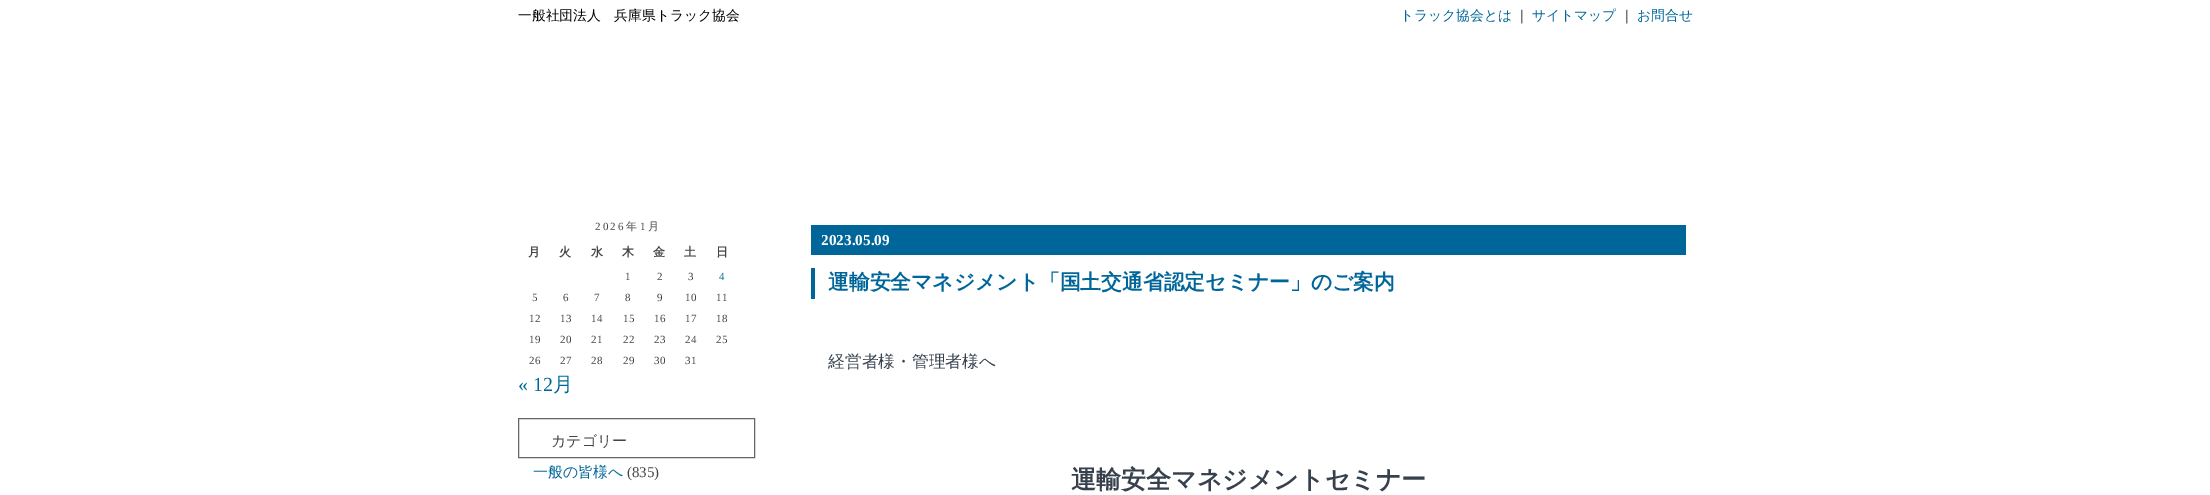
%!PS-Adobe-3.0
%%BoundingBox: 0 0 2210 495
%%LanguageLevel: 3
%%Pages: 1
%%EndComments
%%BeginProlog
/m { moveto } bind def
/fn { [ exch dup neg 0 0 3 -1 roll 0 0 ] selectfont } def
/tx { moveto show } def
/bx { rectfill } def
%%EndProlog
%%BeginSetup
<< /PageSize [2210 495] >> setpagedevice
%%EndSetup
%%Page: 1 1
0 495 translate 1 -1 scale
4 setmiterlimit
1 setgray
0 0 2210 495 bx
/WenQuanYiZenHei-Medium 13.75 fn
0 setgray
(一般社団法人　兵庫県トラック協会) 518 20 tx
0 0.4 0.6 setrgbcolor
(トラック協会とは) 1400 20 tx
0 setgray
(｜) 1515 20 tx
0 0.4 0.6 setrgbcolor
(サイトマップ) 1532 20 tx
0 setgray
(｜) 1620 20 tx
0 0.4 0.6 setrgbcolor
(お問合せ) 1637 20 tx
/LiberationSerif-Regular 11 fn
0.267 setgray
595 230 m 2 0 (2026) ashow
/WenQuanYiZenHei-Medium 11 fn
626 230 m 2 0 (年) ashow
/LiberationSerif-Regular 11 fn
640 230 m 2 0 (1) ashow
/WenQuanYiZenHei-Medium 11 fn
648 230 m 2 0 (月) ashow
/WenQuanYiZenHei-Bold 12 fn
(月) 528 256 tx
(火) 559 256 tx
(水) 591 256 tx
(木) 622 256 tx
(金) 653 256 tx
(土) 684 256 tx
(日) 716 256 tx
/LiberationSerif-Regular 11 fn
(1) 625 280 tx
(2) 657 280 tx
(3) 688 280 tx
0 0.4 0.6 setrgbcolor
(4) 719 280 tx
0.267 setgray
(5) 532 301 tx
(6) 563 301 tx
(7) 594 301 tx
(8) 625 301 tx
(9) 657 301 tx
(10) 685 301 tx
(11) 716 301 tx
(12) 529 322 tx
(13) 560 322 tx
(14) 591 322 tx
(15) 623 322 tx
(16) 654 322 tx
(17) 685 322 tx
(18) 716 322 tx
(19) 529 343 tx
(20) 560 343 tx
(21) 591 343 tx
(22) 623 343 tx
(23) 654 343 tx
(24) 685 343 tx
(25) 716 343 tx
(26) 529 364 tx
(27) 560 364 tx
(28) 591 364 tx
(29) 623 364 tx
(30) 654 364 tx
(31) 685 364 tx
/LiberationSerif-Regular 20 fn
0 0.4 0.6 setrgbcolor
(« 12) 518 391 tx
/WenQuanYiZenHei-Medium 20 fn
(月) 553 391 tx
0.4 setgray
518.5 418.5 236 39 rectstroke
/WenQuanYiZenHei-Medium 15 fn
0.267 setgray
(カテゴリー) 551 446 tx
0 0.4 0.6 setrgbcolor
(一般の皆様へ) 533 477 tx
/LiberationSerif-Regular 15 fn
0.267 setgray
(\(835\)) 627 477 tx
0 0.4 0.6 setrgbcolor
811 225 875 30 bx
/LiberationSerif-Bold 15.25 fn
1 setgray
(2023.05.09) 821 245 tx
0 0.4 0.6 setrgbcolor
811 268 4 31 bx
/WenQuanYiZenHei-Bold 20.8 fn
(運輸安全マネジメント「国土交通省認定セミナー」のご案内) 828 289 tx
/WenQuanYiZenHei-Medium 16.75 fn
0.212 0.255 0.302 setrgbcolor
(経営者様・管理者様へ) 828 367 tx
/WenQuanYiZenHei-Bold 25 fn
(運輸安全マネジメントセミナー) 1071 488 tx
showpage
%%EOF
